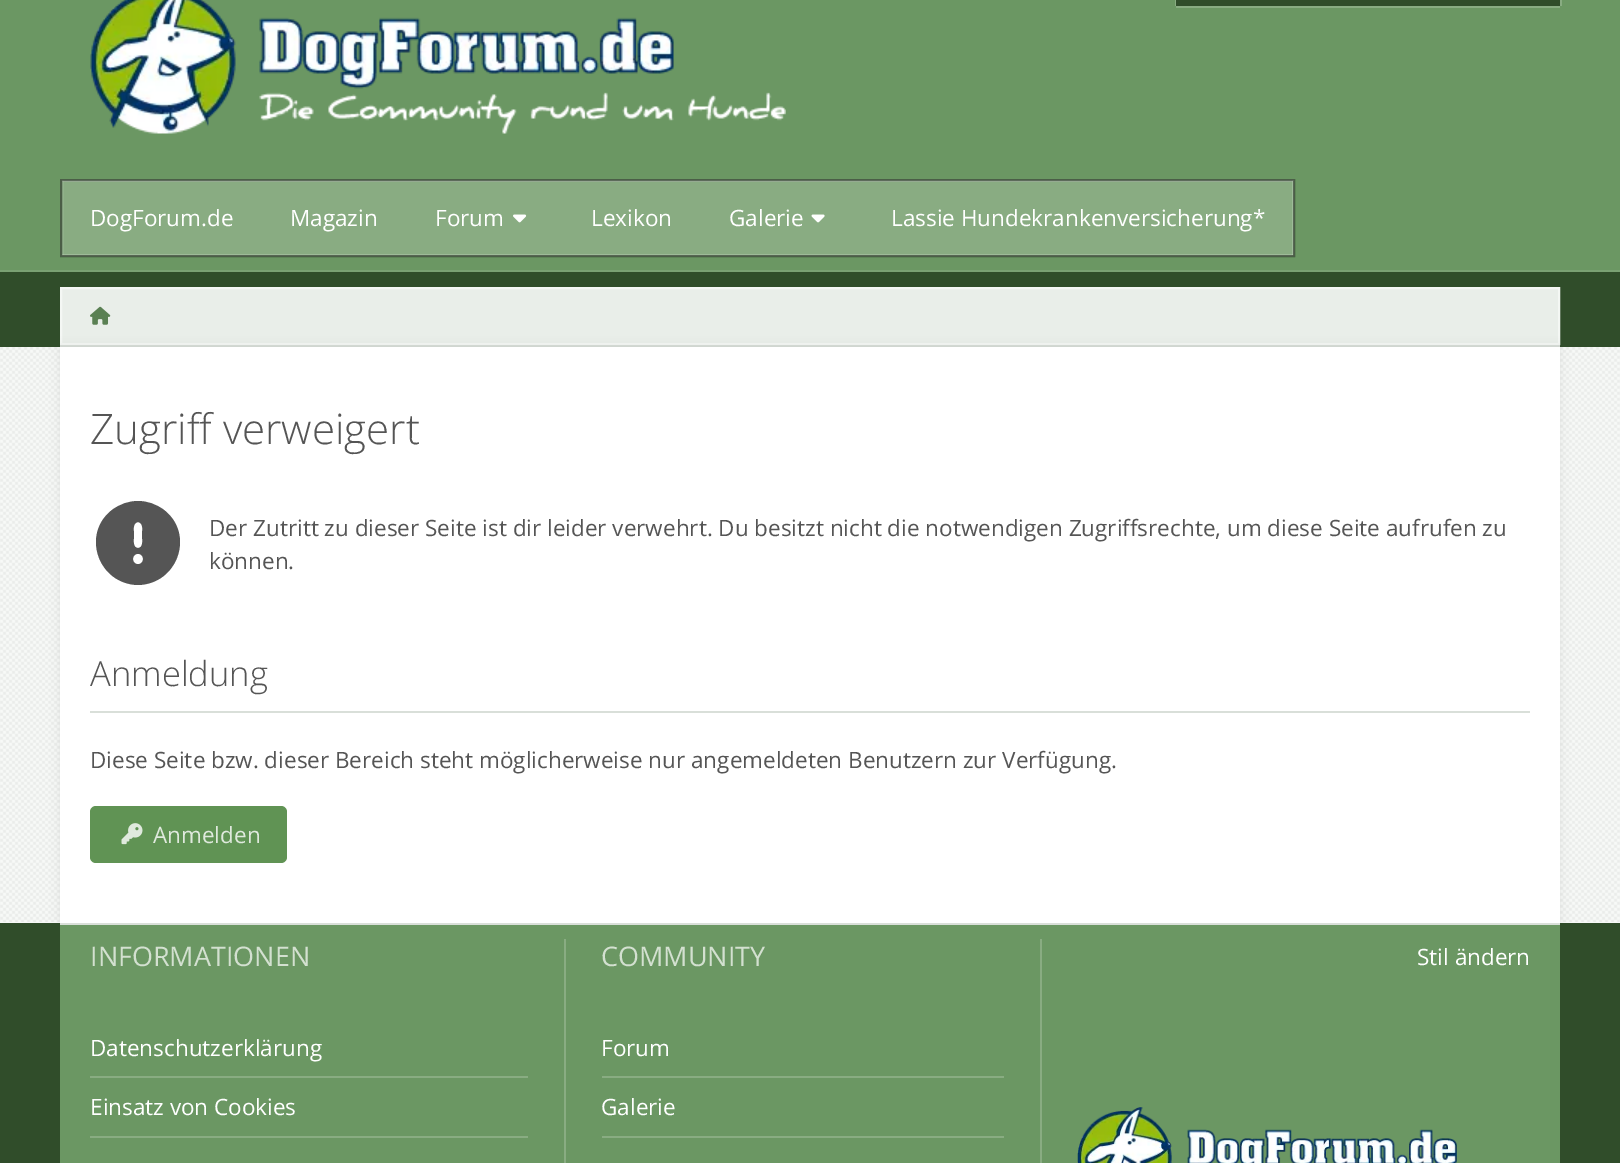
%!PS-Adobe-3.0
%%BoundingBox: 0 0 1620 1163
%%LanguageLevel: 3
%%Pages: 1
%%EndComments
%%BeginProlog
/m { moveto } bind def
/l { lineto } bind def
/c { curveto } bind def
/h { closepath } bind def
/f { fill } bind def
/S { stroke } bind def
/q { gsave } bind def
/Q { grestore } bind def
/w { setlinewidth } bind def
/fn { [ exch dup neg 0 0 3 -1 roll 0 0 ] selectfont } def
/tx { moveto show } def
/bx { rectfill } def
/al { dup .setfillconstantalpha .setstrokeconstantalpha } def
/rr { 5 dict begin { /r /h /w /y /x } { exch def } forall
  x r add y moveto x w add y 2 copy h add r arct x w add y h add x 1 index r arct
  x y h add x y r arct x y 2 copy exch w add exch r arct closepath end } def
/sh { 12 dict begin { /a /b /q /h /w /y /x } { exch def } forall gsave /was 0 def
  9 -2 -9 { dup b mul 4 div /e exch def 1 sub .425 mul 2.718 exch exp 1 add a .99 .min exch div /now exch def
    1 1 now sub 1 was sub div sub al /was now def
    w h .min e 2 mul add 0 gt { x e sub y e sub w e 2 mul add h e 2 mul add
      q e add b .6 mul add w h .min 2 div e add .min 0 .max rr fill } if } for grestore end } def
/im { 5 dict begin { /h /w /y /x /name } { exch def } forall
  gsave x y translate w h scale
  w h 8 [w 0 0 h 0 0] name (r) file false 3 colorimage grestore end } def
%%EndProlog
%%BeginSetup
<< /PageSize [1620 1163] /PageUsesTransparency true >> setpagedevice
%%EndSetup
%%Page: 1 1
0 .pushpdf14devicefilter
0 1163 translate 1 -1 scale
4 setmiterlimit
0.42 0.592 0.388 setrgbcolor
0 0 1620 1163 bx
0.478 0.631 0.451 setrgbcolor
0 270 1620 2 bx
(image0.raw) 90 0 696 134 im
0.537 0.675 0.51 setrgbcolor
1175 0 1 6 bx
1176 6 384 2 bx
0.188 0.302 0.165 setrgbcolor
1176 0 384 6 bx
0.537 0.675 0.51 setrgbcolor
1560 0 2 6 bx
60 179 1235 78 bx
0.667 0.765 0.647 setrgbcolor
62 180 1231 2 bx
0.569 0.698 0.545 setrgbcolor
62 180 2 75 bx
0.69 0.784 0.671 setrgbcolor
62 180 2 2 bx
0.62 0.733 0.6 setrgbcolor
1292 180 2 75 bx
0.725 0.808 0.714 setrgbcolor
1292 180 1 2 bx
0.62 0.733 0.596 setrgbcolor
62 254 1231 2 bx
0.647 0.753 0.624 setrgbcolor
62 254 2 1 bx
0.686 0.78 0.671 setrgbcolor
1292 254 1 1 bx
0.45 al
0 setgray
2 w
61 180 1233 76 rectstroke
/OpenSans-Regular 22.5 fn
1 al
1 setgray
(DogForum.de) 90 226 tx
(Magazin) 290 226 tx
(Forum) 435 226 tx
(image1.raw) 513 214 14 9 im
(Lexikon) 591 226 tx
(Galerie) 729 226 tx
(image2.raw) 811 214 14 9 im
(Lassie Hundekrankenversicherung*) 891 226 tx
0.188 0.302 0.165 setrgbcolor
0 272 1620 75 bx
0.914 0.933 0.914 setrgbcolor
61 288 m 1559 288 l 1559 344 l 61 344 l h q f Q
0.957 0.969 0.957 setrgbcolor
S
0.851 0.875 0.851 setrgbcolor
60 345 1500 2 bx
(image3.raw) 90 306 21 19 im
0.969 0.976 0.969 setrgbcolor
0 347 1620 576 bx
(image4.raw) 0 347 1620 575 im
0 setgray
60 347 1500 576 0 5 0.07 sh
1 setgray
60 347 1500 576 bx
/OpenSans-Light 42 fn
0.333 setgray
(Zugriff verweigert) 90 444 tx
138 585 m 178 584 195 534 164 510 c 156 504 147 501 138 501 c 129 501 120 504 112 510 c 81 534 98 584 138 585 c h 138 522 m 144 523 142 531 142 535 c 142 538 144 548 138 548 c 132 548 134 538 134 535 c 134 531 132 523 138 522 c h 133 559 m 133 552 143 552 143 559 c 143 566 133 566 133 559 c h f
/OpenSans-Regular 22.5 fn
(Der Zutritt zu dieser Seite ist dir leider verwehrt. Du besitzt nicht die notwendigen Zugriffsrechte, um diese Seite aufrufen zu) 209 536 tx
(können.) 209 569 tx
0.851 0.875 0.851 setrgbcolor
90 711 1440 2 bx
/OpenSans-Light 34.5 fn
0.333 setgray
(Anmeldung) 90 686 tx
/OpenSans-Regular 22.5 fn
(Diese Seite bzw. dieser Bereich steht möglicherweise nur angemeldeten Benutzern zur Verfügung.) 90 768 tx
0.376 0.576 0.329 setrgbcolor
90 806 197 57 6 rr f
(image5.raw) 121 823 22 22 im
0.875 0.914 0.867 setrgbcolor
(Anmelden) 153 843 tx
0.188 0.302 0.165 setrgbcolor
0 923 1620 240 bx
0.42 0.592 0.388 setrgbcolor
60 925 1500 238 bx
0.851 0.875 0.851 setrgbcolor
60 923 1500 2 bx
0.537 0.675 0.51 setrgbcolor
564 939 2 224 bx
/OpenSans-Regular 27 fn
0.827 0.878 0.816 setrgbcolor
(INFORMATIONEN) 90 966 tx
0.537 0.675 0.51 setrgbcolor
90 1076 438 2 bx
/OpenSans-Regular 22.5 fn
1 setgray
(Datenschutzerklärung) 90 1056 tx
0.537 0.675 0.51 setrgbcolor
90 1136 438 2 bx
1 setgray
(Einsatz von Cookies) 90 1115 tx
0.537 0.675 0.51 setrgbcolor
1040 939 2 224 bx
/OpenSans-Regular 27 fn
0.827 0.878 0.816 setrgbcolor
(COMMUNITY) 601 966 tx
0.537 0.675 0.51 setrgbcolor
602 1076 402 2 bx
/OpenSans-Regular 22.5 fn
1 setgray
(Forum) 601 1056 tx
0.537 0.675 0.51 setrgbcolor
602 1136 402 2 bx
1 setgray
(Galerie) 601 1115 tx
(image6.raw) 1077 1107 380 56 im
(Stil ändern) 1417 965 tx
.poppdf14devicefilter showpage
%%EOF
